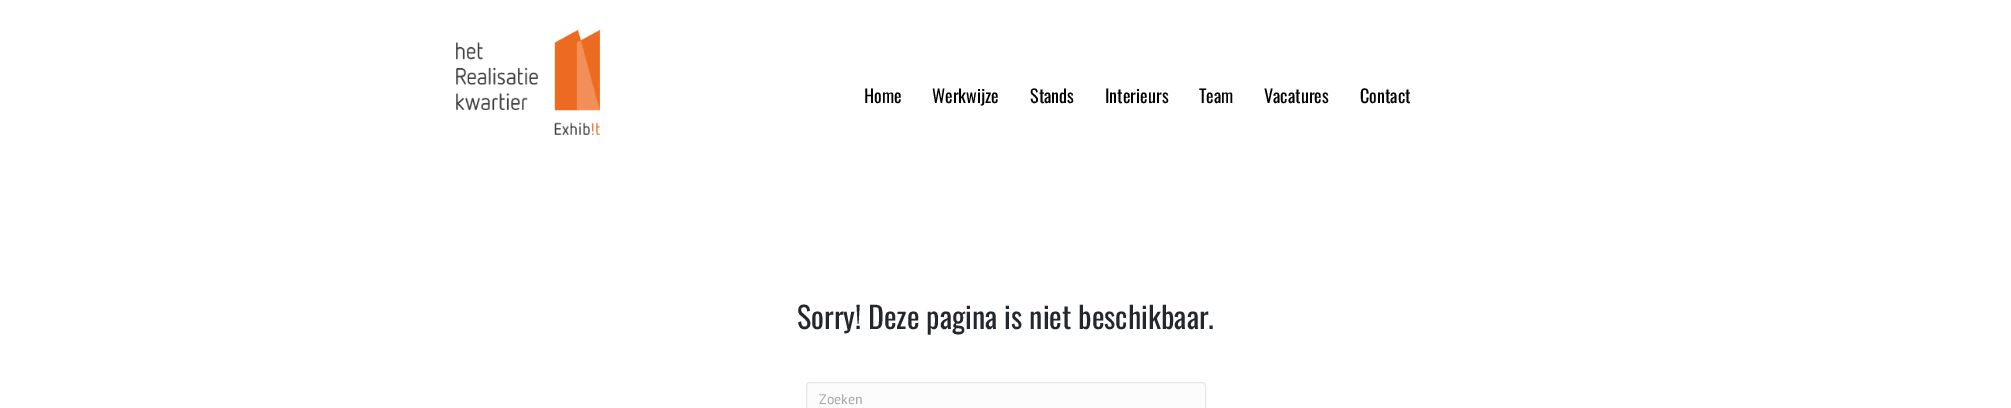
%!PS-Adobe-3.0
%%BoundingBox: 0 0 2011 408
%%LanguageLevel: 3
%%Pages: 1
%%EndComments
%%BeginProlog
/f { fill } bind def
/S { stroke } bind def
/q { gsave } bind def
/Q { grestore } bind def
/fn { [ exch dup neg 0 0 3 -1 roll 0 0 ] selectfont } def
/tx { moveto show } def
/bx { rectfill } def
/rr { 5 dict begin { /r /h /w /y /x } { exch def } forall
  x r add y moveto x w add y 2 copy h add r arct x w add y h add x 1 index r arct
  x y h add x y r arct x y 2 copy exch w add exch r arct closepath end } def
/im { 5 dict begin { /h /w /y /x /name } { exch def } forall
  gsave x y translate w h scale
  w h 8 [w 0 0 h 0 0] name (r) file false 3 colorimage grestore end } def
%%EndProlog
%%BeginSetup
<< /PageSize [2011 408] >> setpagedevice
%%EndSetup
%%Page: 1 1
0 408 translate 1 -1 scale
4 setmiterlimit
1 setgray
0 0 2011 408 bx
(image0.raw) 456 30 144 105 im
/Oswald-Regular 18 fn
0 setgray
(Home) 864 103 tx
(Werkwijze) 932 103 tx
(Stands) 1030 103 tx
(Interieurs) 1105 103 tx
(Team) 1199 103 tx
(Vacatures) 1264 103 tx
(Contact) 1360 103 tx
/Oswald-Regular 30 fn
0.137 0.157 0.176 setrgbcolor
(Sorry! Deze pagina is niet beschikbaar.) 797 329 tx
0.988 setgray
806.5 382.5 399 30 3.5 rr q f Q
0.902 setgray
S
/PTSans-Regular 14 fn
0.647 0.655 0.663 setrgbcolor
(Zoeken) 819 404 tx
showpage
%%EOF
